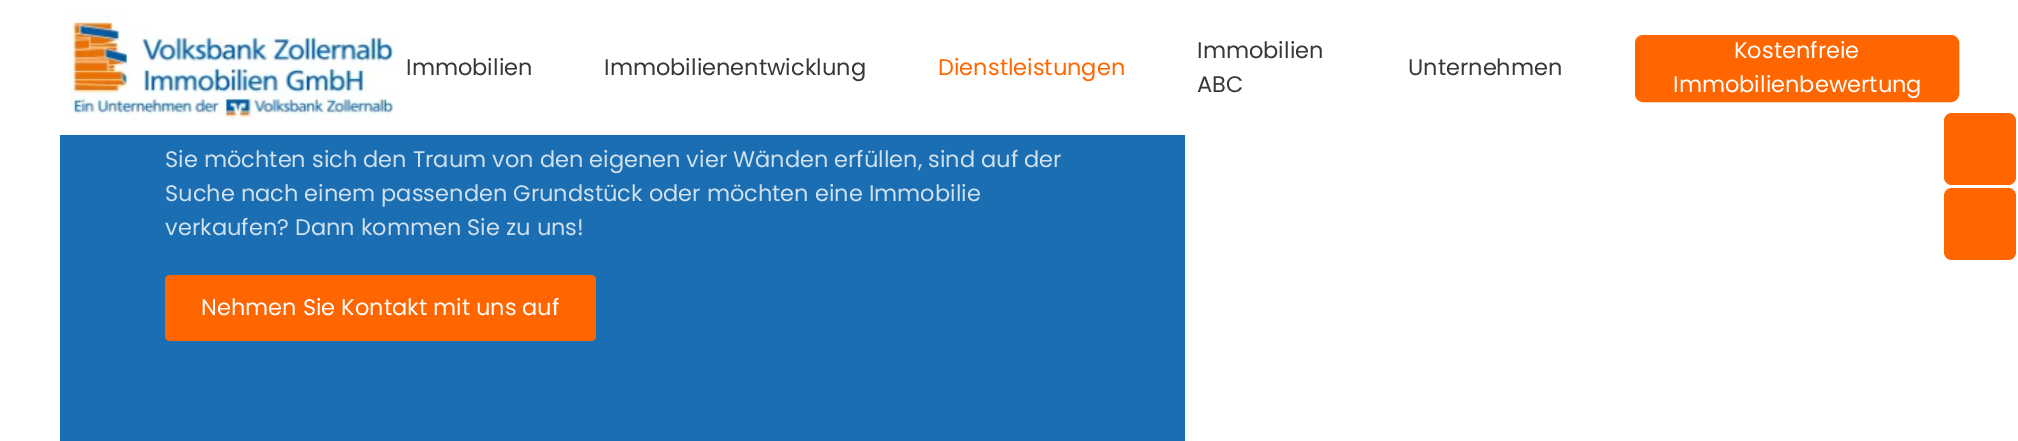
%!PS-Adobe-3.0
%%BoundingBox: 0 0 2018 441
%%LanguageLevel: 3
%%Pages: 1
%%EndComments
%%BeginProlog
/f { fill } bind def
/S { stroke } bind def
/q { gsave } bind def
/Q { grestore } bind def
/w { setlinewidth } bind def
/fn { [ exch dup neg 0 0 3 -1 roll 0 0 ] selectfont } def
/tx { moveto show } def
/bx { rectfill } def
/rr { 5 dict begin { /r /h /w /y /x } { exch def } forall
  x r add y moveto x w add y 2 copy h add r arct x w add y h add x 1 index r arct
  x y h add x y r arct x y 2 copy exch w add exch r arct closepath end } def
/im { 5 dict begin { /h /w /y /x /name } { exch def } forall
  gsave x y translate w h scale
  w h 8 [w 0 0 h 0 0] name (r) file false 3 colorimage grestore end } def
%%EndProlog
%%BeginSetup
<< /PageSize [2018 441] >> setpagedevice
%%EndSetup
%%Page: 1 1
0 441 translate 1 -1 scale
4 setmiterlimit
1 setgray
0 0 2018 441 bx
(image0.raw) 70 15 324 105 im
/Poppins-Regular 22.5 fn
0.216 setgray
(Immobilien) 406 75 tx
(Immobilienentwicklung) 604 75 tx
1 0.4 0 setrgbcolor
(Dienstleistungen) 938 75 tx
0.216 setgray
(Immobilien) 1197 58 tx
(ABC) 1197 92 tx
(Unternehmen) 1408 75 tx
1 0.4 0 setrgbcolor
1636.5 36.5 321 64 6.5 rr q f Q
3 w
S
1 setgray
(Kostenfreie) 1734 58 tx
(Immobilienbewertung) 1673 92 tx
0.11 0.431 0.702 setrgbcolor
60 135 1125 306 bx
0.812 0.882 0.937 setrgbcolor
(Sie möchten sich den Traum von den eigenen vier Wänden erfüllen, sind auf der) 165 167 tx
(Suche nach einem passenden Grundstück oder möchten eine Immobilie) 165 201 tx
(verkaufen? Dann kommen Sie zu uns!) 165 235 tx
1 0.4 0 setrgbcolor
165 275 431 66 5 rr f
1 setgray
(Nehmen Sie Kontakt mit uns auf) 201 315 tx
1 0.4 0 setrgbcolor
1944 113 72 72 8 rr f
1944 188 72 72 8 rr f
showpage
%%EOF
